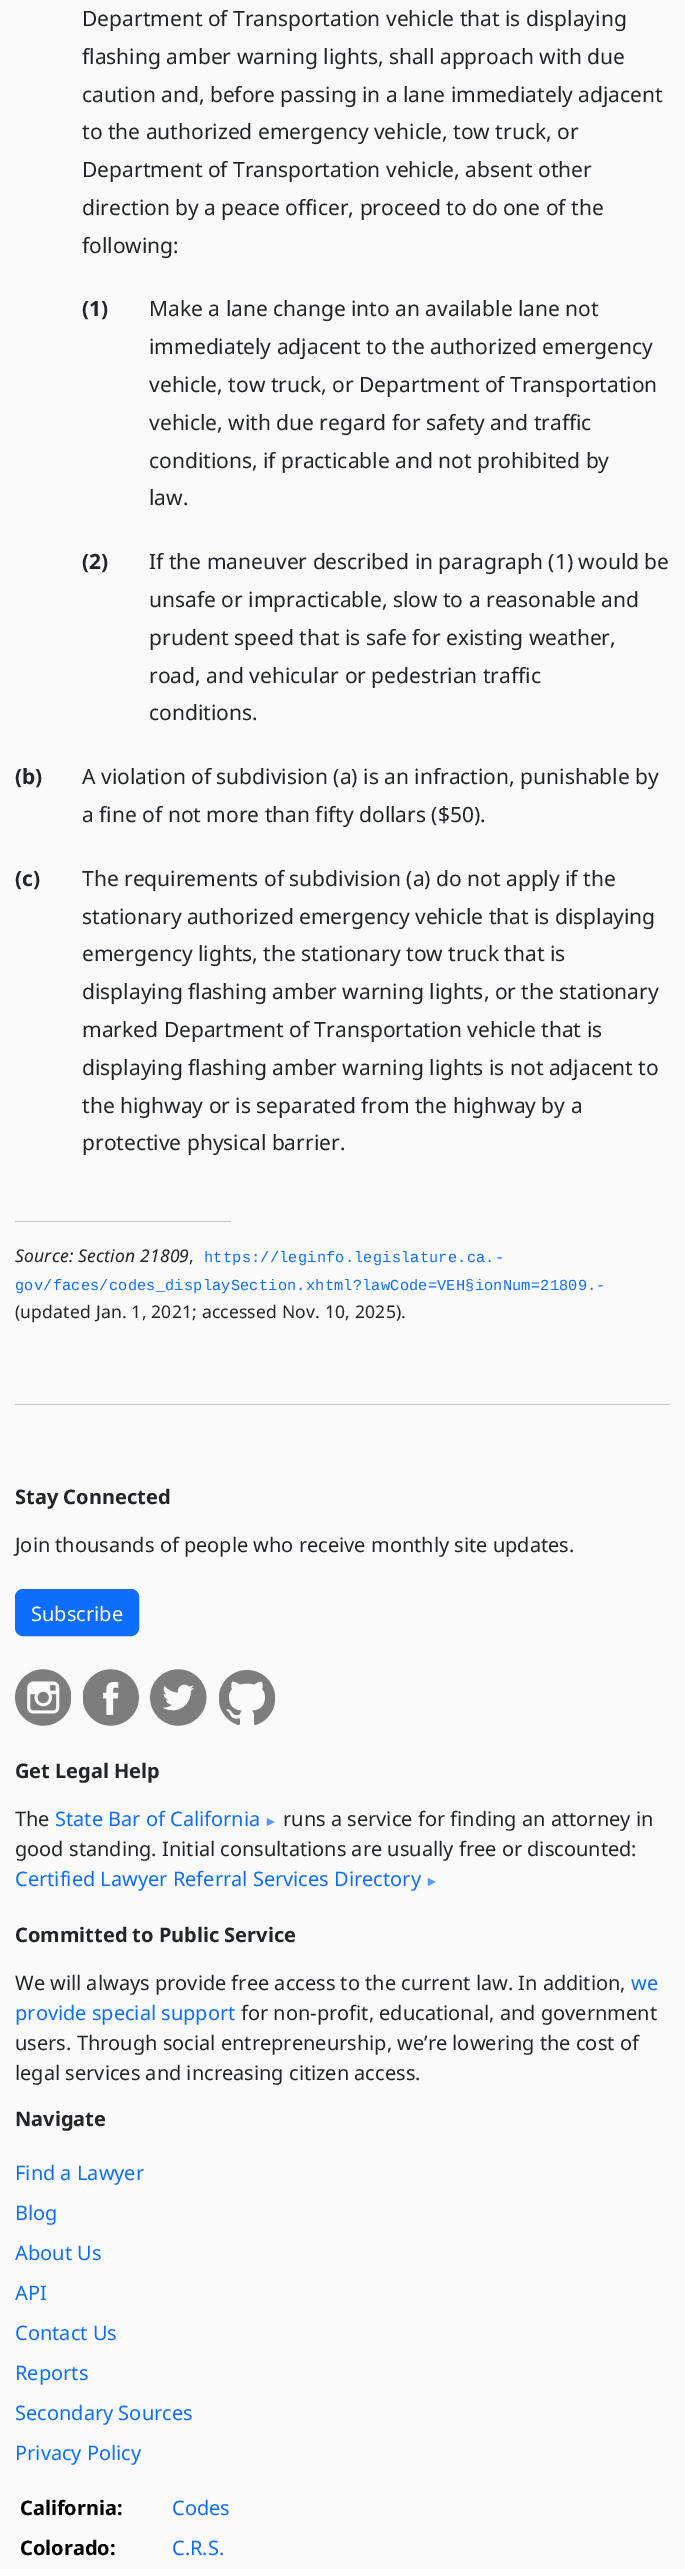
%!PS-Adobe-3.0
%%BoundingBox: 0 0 685 2569
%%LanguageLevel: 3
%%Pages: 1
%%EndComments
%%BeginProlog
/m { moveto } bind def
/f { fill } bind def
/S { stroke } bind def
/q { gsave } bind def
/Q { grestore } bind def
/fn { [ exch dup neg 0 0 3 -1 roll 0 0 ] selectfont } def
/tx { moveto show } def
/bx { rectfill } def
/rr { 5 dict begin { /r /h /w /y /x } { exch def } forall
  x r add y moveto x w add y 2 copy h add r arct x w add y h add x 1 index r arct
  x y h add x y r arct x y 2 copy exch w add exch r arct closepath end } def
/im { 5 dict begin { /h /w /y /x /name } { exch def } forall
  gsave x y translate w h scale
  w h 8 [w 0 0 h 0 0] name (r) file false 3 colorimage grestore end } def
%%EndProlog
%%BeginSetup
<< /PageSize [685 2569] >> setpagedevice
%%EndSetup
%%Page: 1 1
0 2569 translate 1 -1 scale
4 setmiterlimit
0.98 setgray
0 0 685 2569 bx
/NotoSans-Regular 21 fn
0.129 0.145 0.161 setrgbcolor
(Department of Transportation vehicle that is displaying) 82 26 tx
(flashing amber warning lights, shall approach with due) 82 64 tx
(caution and, before passing in a lane immediately adjacent) 82 102 tx
(to the authorized emergency vehicle, tow truck, or) 82 139 tx
(Department of Transportation vehicle, absent other) 82 177 tx
(direction by a peace officer, proceed to do one of the) 82 215 tx
(following:) 82 253 tx
/NotoSans-Bold 21 fn
(\(1\)) 82 316 tx
/NotoSans-Regular 21 fn
(Make a lane change into an available lane not) 149 316 tx
(immediately adjacent to the authorized emergency) 149 354 tx
(vehicle, tow truck, or Department of Transportation) 149 392 tx
(vehicle, with due regard for safety and traffic) 149 430 tx
(conditions, if practicable and not prohibited by) 149 468 tx
(law.) 149 505 tx
/NotoSans-Bold 21 fn
(\(2\)) 82 569 tx
/NotoSans-Regular 21 fn
(If the maneuver described in paragraph \(1\) would be) 149 569 tx
(unsafe or impracticable, slow to a reasonable and) 149 607 tx
(prudent speed that is safe for existing weather,) 149 645 tx
(road, and vehicular or pedestrian traffic) 149 683 tx
(conditions.) 149 720 tx
/NotoSans-Bold 21 fn
(\(b\)) 15 784 tx
/NotoSans-Regular 21 fn
(A violation of subdivision \(a\) is an infraction, punishable by) 82 784 tx
(a fine of not more than fifty dollars \($50\).) 82 822 tx
/NotoSans-Bold 21 fn
(\(c\)) 15 886 tx
/NotoSans-Regular 21 fn
(The requirements of subdivision \(a\) do not apply if the) 82 886 tx
(stationary authorized emergency vehicle that is displaying) 82 924 tx
(emergency lights, the stationary tow truck that is) 82 961 tx
(displaying flashing amber warning lights, or the stationary) 82 999 tx
(marked Department of Transportation vehicle that is) 82 1037 tx
(displaying flashing amber warning lights is not adjacent to) 82 1075 tx
(the highway or is separated from the highway by a) 82 1113 tx
(protective physical barrier.) 82 1150 tx
0.769 0.773 0.776 setrgbcolor
15 1221 216 1 bx
/NotoSans-Italic 17.5 fn
0.129 0.145 0.161 setrgbcolor
15 1262 m 0.2 0 (Source: Section 21809) ashow
/NotoSans-Regular 17.5 fn
189 1262 m 0.2 0 (,) ashow
/LiberationMono-Regular 15.3 fn
0.051 0.431 0.992 setrgbcolor
204 1262 m 0.2 0 (https://leginfo.legislature.ca.-) ashow
15 1290 m 0.2 0 (gov/faces/codes_displaySection.xhtml?lawCode=VEH§ionNum=21809.-) ashow
/NotoSans-Regular 17.5 fn
0.129 0.145 0.161 setrgbcolor
15 1318 m 0.2 0 (\(updated Jan. 1, 2021; accessed Nov. 10, 2025\).) ashow
0.769 0.773 0.776 setrgbcolor
15 1404 655 1 bx
/NotoSans-Bold 20 fn
0.129 0.145 0.161 setrgbcolor
(Stay Connected) 15 1504 tx
/NotoSans-Regular 20 fn
(Join thousands of people who receive monthly site updates.) 15 1552 tx
0.051 0.431 0.992 setrgbcolor
15.5 1589.5 123 46 7.5 rr q f Q
S
1 setgray
(Subscribe) 31 1621 tx
(image0.raw) 15 1669 56 57 im
(image1.raw) 83 1669 56 57 im
(image2.raw) 150 1669 57 57 im
(image3.raw) 219 1670 56 55 im
/NotoSans-Bold 20 fn
0.129 0.145 0.161 setrgbcolor
(Get Legal Help) 15 1778 tx
/NotoSans-Regular 20 fn
(The) 15 1826 tx
0.051 0.431 0.992 setrgbcolor
(State Bar of California) 55 1826 tx
/LiberationSans-Regular 14 fn
0.329 0.596 0.988 setrgbcolor
(►) 264 1826 tx
/NotoSans-Regular 20 fn
0.129 0.145 0.161 setrgbcolor
(runs a service for finding an attorney in) 283 1826 tx
(good standing. Initial consultations are usually free or discounted:) 15 1856 tx
0.051 0.431 0.992 setrgbcolor
(Certified Lawyer Referral Services Directory) 15 1886 tx
/LiberationSans-Regular 14 fn
0.329 0.596 0.988 setrgbcolor
(►) 425 1886 tx
/NotoSans-Bold 20 fn
0.129 0.145 0.161 setrgbcolor
(Committed to Public Service) 15 1942 tx
/NotoSans-Regular 20 fn
(We will always provide free access to the current law. In addition,) 15 1990 tx
0.051 0.431 0.992 setrgbcolor
(we) 631 1990 tx
(provide special support) 15 2020 tx
0.129 0.145 0.161 setrgbcolor
(for non-profit, educational, and government) 241 2020 tx
(users. Through social entrepreneurship, we’re lowering the cost of) 15 2050 tx
(legal services and increasing citizen access.) 15 2080 tx
/NotoSans-Bold 20 fn
(Navigate) 15 2126 tx
/NotoSans-Regular 20 fn
0.051 0.431 0.992 setrgbcolor
(Find a Lawyer) 15 2180 tx
(Blog) 15 2220 tx
(About Us) 15 2260 tx
(API) 15 2300 tx
(Contact Us) 15 2340 tx
(Reports) 15 2380 tx
(Secondary Sources) 15 2420 tx
(Privacy Policy) 15 2460 tx
/NotoSans-Bold 20 fn
0 setgray
(California:) 20 2515 tx
/NotoSans-Regular 20 fn
0.051 0.431 0.992 setrgbcolor
(Codes) 172 2515 tx
/NotoSans-Bold 20 fn
0 setgray
(Colorado:) 20 2555 tx
/NotoSans-Regular 20 fn
0.051 0.431 0.992 setrgbcolor
(C.R.S.) 172 2555 tx
showpage
%%EOF
